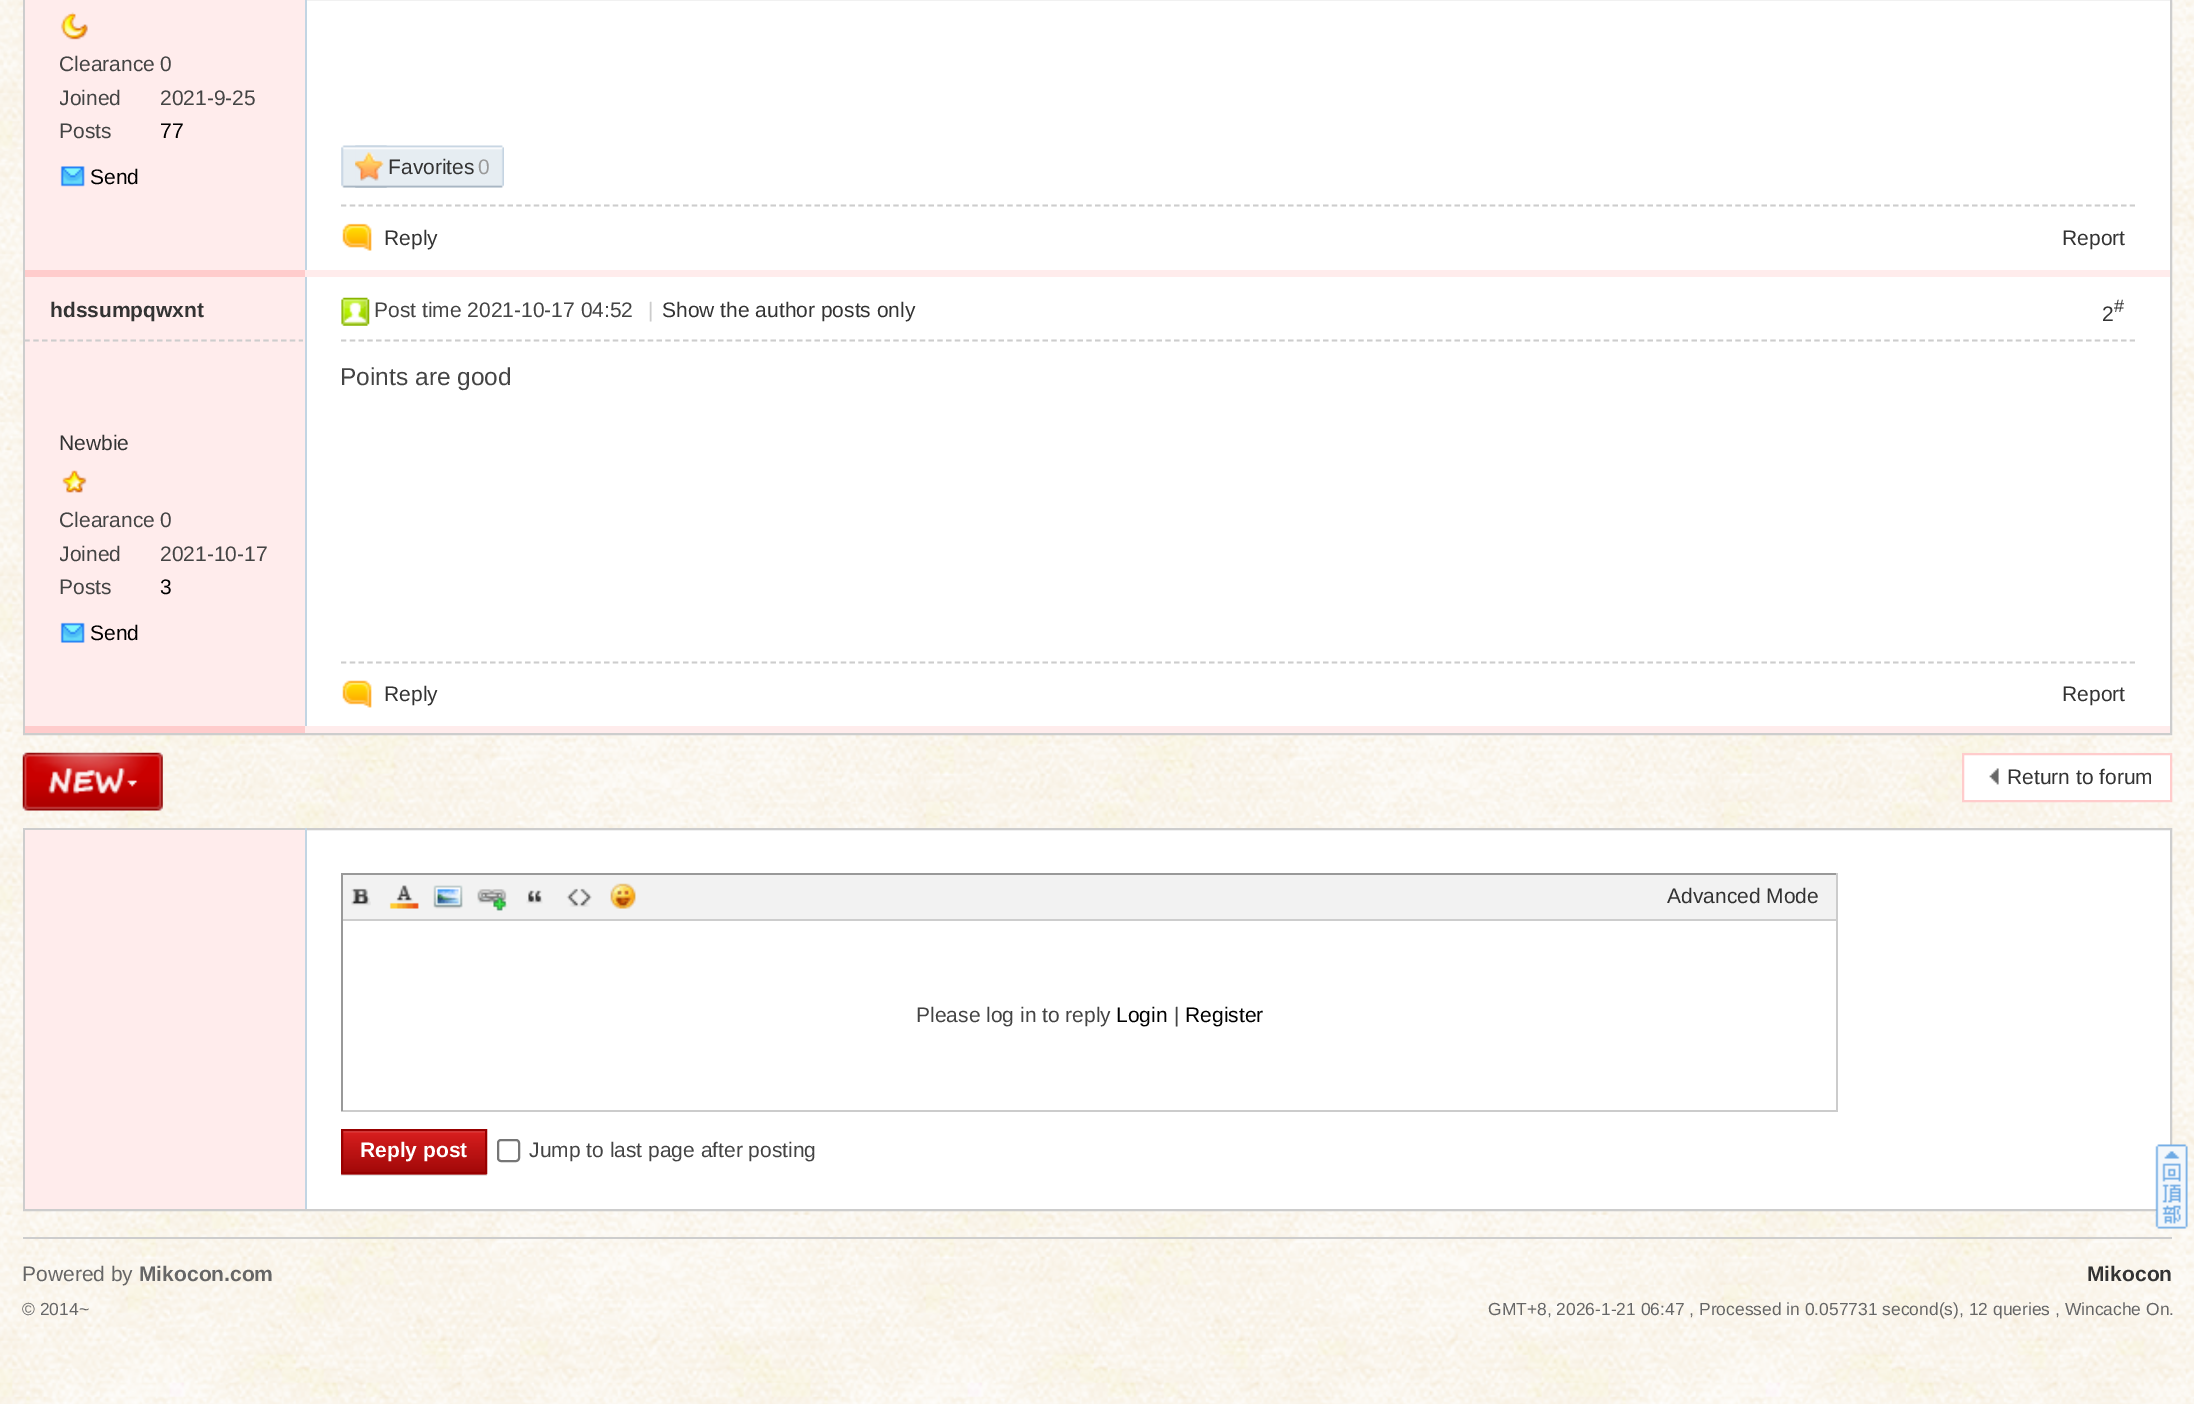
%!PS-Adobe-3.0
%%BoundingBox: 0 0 2194 1404
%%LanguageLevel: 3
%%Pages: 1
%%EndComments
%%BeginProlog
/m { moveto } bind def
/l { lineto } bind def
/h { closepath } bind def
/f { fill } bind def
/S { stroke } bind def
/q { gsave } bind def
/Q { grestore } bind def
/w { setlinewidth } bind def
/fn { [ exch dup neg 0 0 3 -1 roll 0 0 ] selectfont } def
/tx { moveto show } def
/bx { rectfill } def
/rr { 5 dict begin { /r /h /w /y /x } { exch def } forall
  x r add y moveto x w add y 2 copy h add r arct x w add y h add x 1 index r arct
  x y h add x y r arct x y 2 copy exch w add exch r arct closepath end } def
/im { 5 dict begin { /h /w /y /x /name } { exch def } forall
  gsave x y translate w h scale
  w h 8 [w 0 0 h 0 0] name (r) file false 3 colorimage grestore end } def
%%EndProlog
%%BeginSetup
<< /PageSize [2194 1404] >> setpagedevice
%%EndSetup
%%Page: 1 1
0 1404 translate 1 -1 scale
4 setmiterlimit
1 setgray
0 0 2194 1404 bx
(image0.raw) 0 0 2194 1404 im
307 0 1863 726 bx
0.804 setgray
2 w
24 -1 2147 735 rectstroke
1 0.925 0.925 setrgbcolor
25 0 280 270 bx
(image1.raw) 60 12 28 28 im
q
60 49 96 33 rectclip
/LiberationSans-Regular 21 fn
0.267 setgray
(Clearance) 59 71 tx
Q
/LiberationSans-Regular 21 fn
0.267 setgray
(0) 160 71 tx
q
60 82 96 34 rectclip
(Joined) 59 105 tx
Q
(2021-9-25) 160 105 tx
(Posts) 59 138 tx
0 setgray
(77) 160 138 tx
(image2.raw) 60 166 25 21 im
(Send) 90 184 tx
(image3.raw) 341 145 47 43 im
(image4.raw) 355 145 149 43 im
(image5.raw) 355 152 29 29 im
0.2 setgray
(Favorites) 388 174 tx
0.6 setgray
(0) 478 174 tx
0.761 0.835 0.89 setrgbcolor
305 0 2 271 bx
0.804 setgray
1.8 w
[5.25 3.52] 0 setdash
341 205.5 m 2135 205.5 l S
(image6.raw) 342 223 30 28 im
0.2 setgray
(Reply) 384 245 tx
(Report) 2062 245 tx
1 0.8 0.8 setrgbcolor
25 270 280 7 bx
1 0.925 0.925 setrgbcolor
305 270 1865 7 bx
25 277 280 449 bx
q
25 277 278 385 rectclip
0.804 setgray
[5.25 3.6] 0 setdash
24.5 340.5 m 304.5 340.5 l S
Q
/LiberationSans-Bold 21 fn
0.2 setgray
(hdssumpqwxnt) 50 317 tx
/LiberationSans-Regular 21 fn
(Newbie) 59 450 tx
(image7.raw) 62 470 25 23 im
q
60 504 96 33 rectclip
0.267 setgray
(Clearance) 59 527 tx
Q
0.267 setgray
(0) 160 527 tx
q
60 537 96 35 rectclip
(Joined) 59 561 tx
Q
(2021-10-17) 160 561 tx
(Posts) 59 594 tx
0 setgray
(3) 160 594 tx
(image8.raw) 60 622 25 21 im
(Send) 90 640 tx
0.804 setgray
341 340.5 m 2135 340.5 l S
(image9.raw) 341 297 29 29 im
0.267 setgray
(Post time 2021-10-17 04:52) 374 317 tx
0.8 setgray
(|) 648 317 tx
0.2 setgray
(Show the author posts only) 662 317 tx
(2) 2102 321 tx
/LiberationSans-Regular 18 fn
(#) 2114 312 tx
/LiberationSans-Regular 24.5 fn
0.267 setgray
(Points are good) 340 385 tx
0.761 0.835 0.89 setrgbcolor
305 277 2 449 bx
0.804 setgray
341 662.5 m 2135 662.5 l S
(image10.raw) 342 680 30 28 im
/LiberationSans-Regular 21 fn
0.2 setgray
(Reply) 384 701 tx
(Report) 2062 701 tx
1 0.8 0.8 setrgbcolor
25 726 280 7 bx
1 0.925 0.925 setrgbcolor
305 726 1865 7 bx
(image11.raw) 22 752 141 59 im
1 setgray
1964 755 206 45 bx
(image12.raw) 1989 768 10 17 im
1 0.8 0.8 setrgbcolor
2 w
[] 0 setdash
1963 754 208 47 rectstroke
0.2 setgray
(Return to forum) 2007 784 tx
1 setgray
307 830 1863 379 bx
0.804 setgray
24 829 2147 381 rectstroke
0.761 0.835 0.89 setrgbcolor
305 828 2 381 bx
1 0.925 0.925 setrgbcolor
25 830 280 379 bx
0.6 setgray
341 873 1497 2 bx
0.8 setgray
1836 873 2 238 bx
341 1110 1497 2 bx
0.6 setgray
341 873 2 238 bx
0.949 setgray
343 875 1493 44 bx
0.804 setgray
343 919 1493 2 bx
(image13.raw) 351 888 20 18 im
(image14.raw) 389 885 30 24 im
(image15.raw) 433 885 30 24 im
(image16.raw) 477 889 31 22 im
(image17.raw) 526 890 17 14 im
(image18.raw) 566 888 26 19 im
(image19.raw) 609 883 27 26 im
0.2 setgray
(Advanced Mode) 1667 903 tx
0.267 setgray
(Please log in to reply) 916 1022 tx
0 setgray
(Login) 1116 1022 tx
0.267 setgray
(|) 1174 1022 tx
0 setgray
(Register) 1185 1022 tx
0.898 setgray
341 1131 m 341 1176 l 487 1176 l 487 1131 l 486 1131 l 486 1174 l 341 1174 l h f
(image20.raw) 341 1131 146 44 im
0.6 0 0 setrgbcolor
342 1130 144 43 rectstroke
/LiberationSans-Bold 21 fn
1 setgray
(Reply post) 360 1157 tx
0.463 setgray
498 1140 21 21 3 rr S
/LiberationSans-Regular 21 fn
0.267 setgray
(Jump to last page after posting) 529 1157 tx
(image21.raw) 2155 1144 33 85 im
0.804 setgray
23 1237 2149 2 bx
0.4 setgray
(Powered by) 22 1281 tx
/LiberationSans-Bold 21 fn
(Mikocon.com) 139 1281 tx
/LiberationSans-Regular 17.45 fn
(© 2014~) 22 1315 tx
/LiberationSans-Bold 21 fn
0.2 setgray
(Mikocon) 2087 1281 tx
/LiberationSans-Regular 17.45 fn
0.4 setgray
(GMT+8, 2026-1-21 06:47 , Processed in 0.057731 second\(s\), 12 queries , Wincache On.) 1488 1315 tx
showpage
%%EOF
